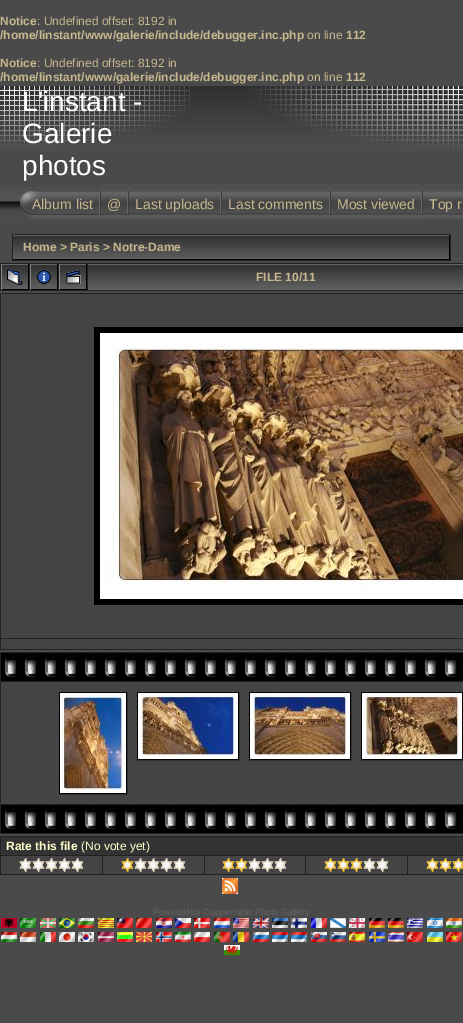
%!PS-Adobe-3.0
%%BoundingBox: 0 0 463 1023
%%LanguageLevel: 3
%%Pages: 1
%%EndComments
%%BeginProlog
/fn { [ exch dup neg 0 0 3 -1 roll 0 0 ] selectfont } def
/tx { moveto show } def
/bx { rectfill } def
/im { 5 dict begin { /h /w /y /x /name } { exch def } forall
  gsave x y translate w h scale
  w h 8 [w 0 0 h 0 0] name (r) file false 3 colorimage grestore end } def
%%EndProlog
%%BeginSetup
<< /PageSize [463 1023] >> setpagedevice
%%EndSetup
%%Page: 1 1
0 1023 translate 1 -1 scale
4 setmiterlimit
0.29 setgray
0 0 463 1023 bx
/LiberationSans-Bold 12 fn
0.776 0.718 0.557 setrgbcolor
(Notice) 0 25 tx
/LiberationSans-Regular 12 fn
(: Undefined offset: 8192 in) 37 25 tx
/LiberationSans-Bold 12 fn
(/home/linstant/www/galerie/include/debugger.inc.php) 0 39 tx
/LiberationSans-Regular 12 fn
(on line) 307 39 tx
/LiberationSans-Bold 12 fn
(112) 346 39 tx
(Notice) 0 67 tx
/LiberationSans-Regular 12 fn
(: Undefined offset: 8192 in) 37 67 tx
/LiberationSans-Bold 12 fn
(/home/linstant/www/galerie/include/debugger.inc.php) 0 81 tx
/LiberationSans-Regular 12 fn
(on line) 307 81 tx
/LiberationSans-Bold 12 fn
(112) 346 81 tx
(image0.raw) 0 150 463 1 im
(image1.raw) 0 86 190 64 im
(image2.raw) 190 86 273 64 im
/LiberationSans-Regular 28 fn
1 setgray
(L'instant -) 22 111 tx
(Galerie) 22 143 tx
(photos) 22 175 tx
(image3.raw) 0 186 423 36 im
0.29 setgray
20 186 79 36 bx
(image4.raw) 20 187 79 33 im
/LiberationSans-Regular 14 fn
0.776 0.718 0.557 setrgbcolor
(Album list) 32 209 tx
(image5.raw) 99 191 2 29 im
0.29 setgray
101 221 26 1 bx
(image6.raw) 101 184 26 36 im
0.776 0.718 0.557 setrgbcolor
(@) 107 209 tx
(image5.raw) 127 191 2 29 im
0.29 setgray
129 221 91 1 bx
(image7.raw) 129 184 91 36 im
0.776 0.718 0.557 setrgbcolor
(Last uploads) 135 209 tx
(image5.raw) 220 191 2 29 im
0.29 setgray
222 221 107 1 bx
(image8.raw) 222 184 107 36 im
0.776 0.718 0.557 setrgbcolor
(Last comments) 228 209 tx
(image5.raw) 329 191 2 29 im
0.29 setgray
331 221 90 1 bx
(image9.raw) 331 184 90 36 im
0.776 0.718 0.557 setrgbcolor
(Most viewed) 337 209 tx
(image5.raw) 421 191 2 29 im
(image10.raw) 423 184 40 36 im
(Top r) 429 209 tx
0.133 setgray
12 234 439 27 bx
(image11.raw) 13 235 436 24 im
0 setgray
449 235 1 25 bx
13 259 437 1 bx
/LiberationSans-Bold 12 fn
0.776 0.718 0.557 setrgbcolor
(Home > Paris > Notre-Dame) 23 251 tx
0.133 setgray
0 263 463 28 bx
(image12.raw) 2 264 26 25 im
0 setgray
28 264 1 26 bx
1 289 28 1 bx
0.514 setgray
1 264 1 26 bx
(image13.raw) 7 269 16 16 im
(image12.raw) 31 264 26 25 im
0 setgray
57 264 1 26 bx
30 289 28 1 bx
0.514 setgray
30 264 1 26 bx
(image14.raw) 37 270 14 14 im
(image12.raw) 60 264 26 25 im
0 setgray
86 264 1 26 bx
59 289 28 1 bx
0.514 setgray
59 264 1 26 bx
(image15.raw) 66 270 15 14 im
(image16.raw) 88 264 375 26 im
0.776 0.718 0.557 setrgbcolor
(FILE 10/11) 256 281 tx
0.133 setgray
0 293 463 357 bx
0.271 0.267 0.267 setrgbcolor
1 294 462 344 bx
0 setgray
94 327 369 278 bx
(image17.raw) 100 333 363 266 im
0.271 0.267 0.267 setrgbcolor
1 639 462 10 bx
0.133 setgray
0 652 463 182 bx
(image18.raw) 1 653 462 28 im
0.271 0.267 0.267 setrgbcolor
1 682 462 122 bx
0 setgray
59.5 692.5 67 101 rectstroke
(image19.raw) 60 693 66 100 im
137.5 692.5 101 67 rectstroke
(image20.raw) 138 693 100 66 im
249.5 692.5 101 67 rectstroke
(image21.raw) 250 693 100 66 im
361.5 692.5 101 67 rectstroke
(image22.raw) 362 693 100 66 im
(image18.raw) 1 805 462 28 im
0.133 setgray
0 836 463 39 bx
0.204 0.2 0.2 setrgbcolor
1 837 462 18 bx
1 1 0.8 setrgbcolor
(Rate this file) 6 850 tx
/LiberationSans-Regular 12 fn
(\(No vote yet\)) 81 850 tx
0.271 0.267 0.267 setrgbcolor
1 856 101 18 bx
(image23.raw) 19 858 65 14 im
103 856 101 18 bx
(image24.raw) 121 858 65 14 im
205 856 100 18 bx
(image25.raw) 222 858 65 14 im
306 856 101 18 bx
(image26.raw) 324 858 65 14 im
408 856 55 18 bx
(image27.raw) 426 858 37 14 im
(image28.raw) 222 878 16 16 im
/LiberationSans-Regular 9 fn
0.4 setgray
(Powered by Coppermine Photo Gallery) 153 915 tx
(image29.raw) 1 918 16 10 im
(image30.raw) 20 918 16 10 im
(image31.raw) 40 918 16 10 im
(image32.raw) 59 918 16 10 im
(image33.raw) 78 918 16 10 im
(image34.raw) 98 918 16 10 im
(image35.raw) 117 918 16 10 im
(image36.raw) 136 918 16 10 im
(image37.raw) 156 918 16 10 im
(image38.raw) 175 918 16 10 im
(image39.raw) 194 918 16 10 im
(image40.raw) 214 918 16 10 im
(image41.raw) 233 918 16 10 im
(image42.raw) 253 918 16 10 im
(image43.raw) 272 918 16 10 im
(image44.raw) 291 918 16 10 im
(image45.raw) 311 918 16 10 im
(image46.raw) 330 918 16 10 im
(image47.raw) 349 918 16 10 im
(image48.raw) 369 918 16 10 im
(image48.raw) 388 918 16 10 im
(image49.raw) 407 918 16 10 im
(image50.raw) 427 918 16 10 im
(image51.raw) 446 918 16 10 im
(image52.raw) 1 932 16 10 im
(image53.raw) 20 932 16 10 im
(image54.raw) 40 932 16 10 im
(image55.raw) 59 932 16 10 im
(image56.raw) 78 932 16 10 im
(image57.raw) 98 932 16 10 im
(image58.raw) 117 932 16 10 im
(image59.raw) 136 932 16 10 im
(image60.raw) 156 932 16 10 im
(image61.raw) 175 932 16 10 im
(image62.raw) 194 932 16 10 im
(image63.raw) 214 932 16 10 im
(image64.raw) 233 932 16 10 im
(image65.raw) 253 932 16 10 im
(image66.raw) 272 932 16 10 im
(image66.raw) 291 932 16 10 im
(image67.raw) 311 932 16 10 im
(image68.raw) 330 932 16 10 im
(image69.raw) 349 932 16 10 im
(image70.raw) 369 932 16 10 im
(image71.raw) 388 932 16 10 im
(image72.raw) 407 932 16 10 im
(image73.raw) 427 932 16 10 im
(image74.raw) 446 932 16 10 im
(image75.raw) 224 945 16 10 im
showpage
%%EOF
